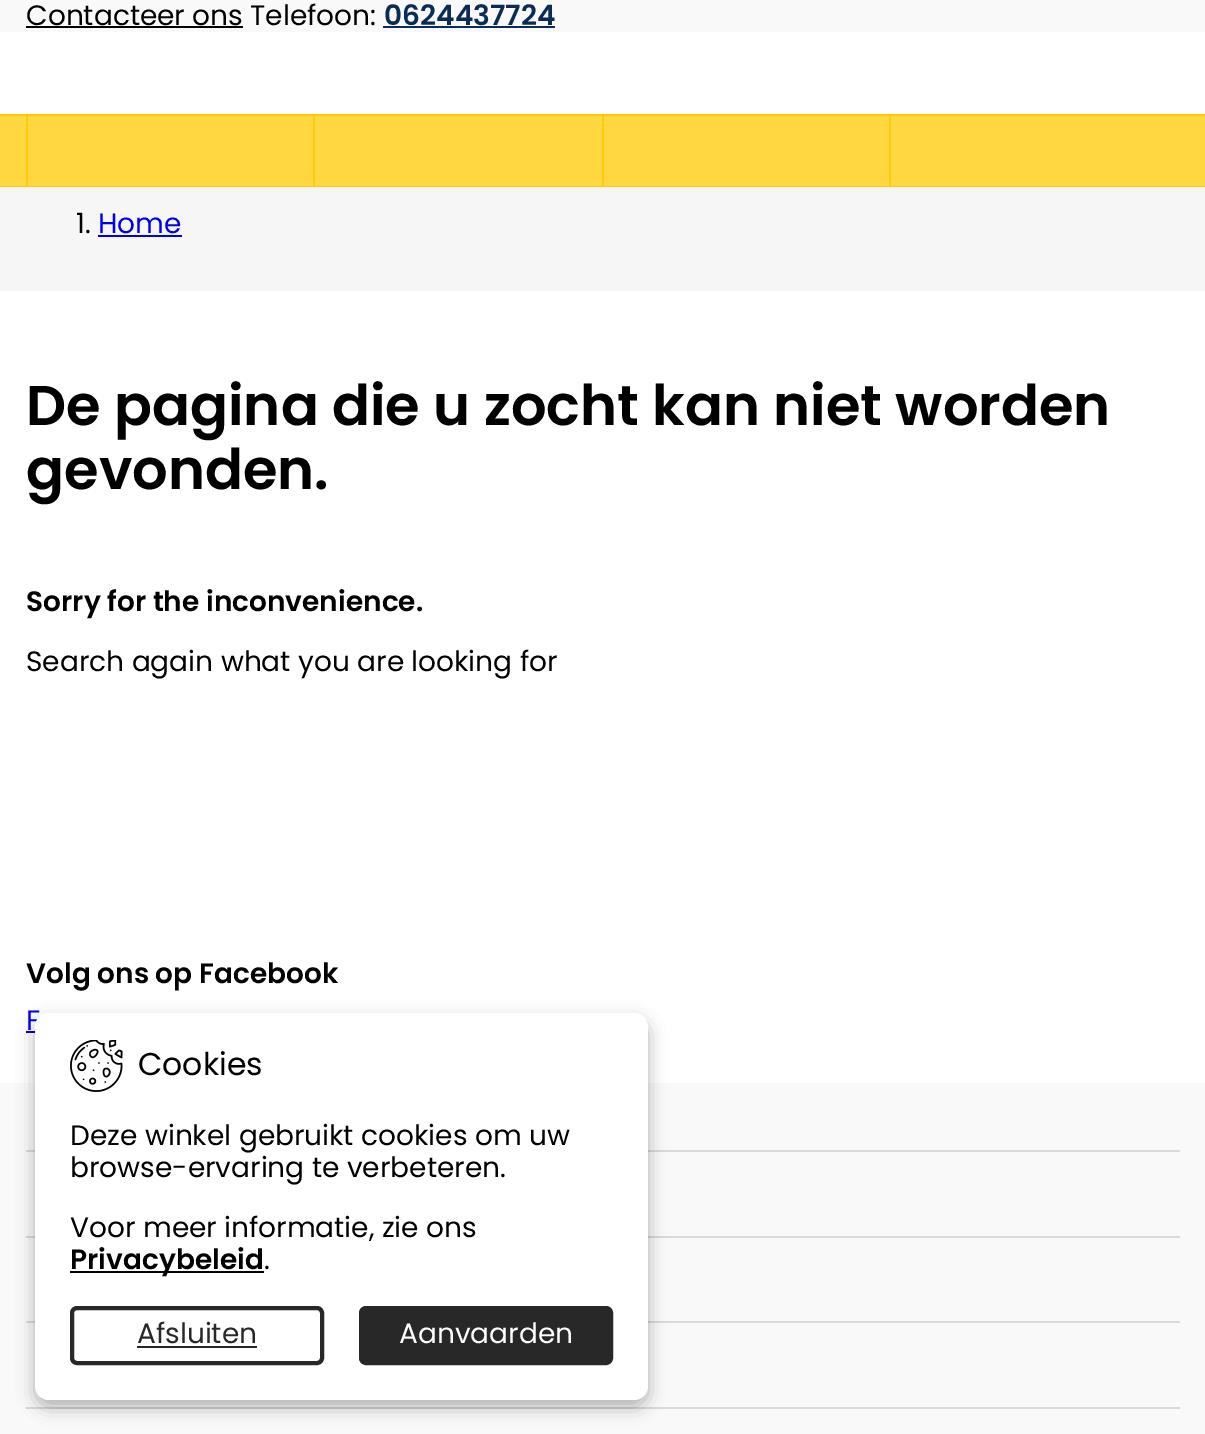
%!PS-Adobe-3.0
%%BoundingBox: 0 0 1205 1434
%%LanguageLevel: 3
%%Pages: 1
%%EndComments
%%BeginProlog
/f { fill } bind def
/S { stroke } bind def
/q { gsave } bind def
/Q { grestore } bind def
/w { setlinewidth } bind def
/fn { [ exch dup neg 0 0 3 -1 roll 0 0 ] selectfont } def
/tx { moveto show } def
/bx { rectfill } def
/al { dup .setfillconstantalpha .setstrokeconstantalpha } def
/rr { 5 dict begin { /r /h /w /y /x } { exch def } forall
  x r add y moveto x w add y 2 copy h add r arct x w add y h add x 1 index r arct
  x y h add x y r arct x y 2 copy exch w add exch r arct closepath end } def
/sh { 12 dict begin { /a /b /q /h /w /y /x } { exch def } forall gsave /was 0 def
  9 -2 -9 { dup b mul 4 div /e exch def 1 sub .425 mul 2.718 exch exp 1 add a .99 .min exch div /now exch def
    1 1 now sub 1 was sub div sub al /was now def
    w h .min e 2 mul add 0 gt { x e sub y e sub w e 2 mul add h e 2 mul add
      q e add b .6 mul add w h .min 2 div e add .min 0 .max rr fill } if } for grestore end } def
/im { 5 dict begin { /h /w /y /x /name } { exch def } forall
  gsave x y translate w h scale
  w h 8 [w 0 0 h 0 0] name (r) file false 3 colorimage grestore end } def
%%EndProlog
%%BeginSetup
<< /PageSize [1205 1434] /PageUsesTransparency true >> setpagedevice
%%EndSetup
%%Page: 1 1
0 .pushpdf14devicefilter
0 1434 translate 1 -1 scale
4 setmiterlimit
1 setgray
0 0 1205 1434 bx
0.976 setgray
0 0 1205 32 bx
/Poppins-Regular 28 fn
0 setgray
(Contacteer ons Telefoon:) 26 25 tx
26 26 217 2 bx
/Poppins-SemiBold 28 fn
0.043 0.173 0.341 setrgbcolor
(0624437724) 384 25 tx
383 26 172 2 bx
1 0.843 0.255 setrgbcolor
0 116 1205 70 bx
1 0.796 0.024 setrgbcolor
0 114 1205 2 bx
0 186 1205 1 bx
313 116 2 70 bx
26 116 2 70 bx
602 116 2 70 bx
889 116 2 70 bx
0.965 setgray
0 187 1205 104 bx
/Poppins-Regular 28 fn
0 setgray
(1.) 76 233 tx
0 0 0.933 setrgbcolor
(Home) 98 233 tx
98 235 84 2 bx
/Poppins-SemiBold 56 fn
0 setgray
(De pagina die u zocht kan niet worden) 26 425 tx
(gevonden.) 26 489 tx
/Poppins-SemiBold 28 fn
(Sorry for the inconvenience.) 26 611 tx
/Poppins-Regular 28 fn
(Search again what you are looking for) 26 671 tx
/Poppins-SemiBold 28 fn
(Volg ons op Facebook) 26 983 tx
/Poppins-Regular 28 fn
0 0 0.933 setrgbcolor
(F) 26 1030 tx
26 1031 9 2 bx
0.976 setgray
0 1083 1205 351 bx
0.855 setgray
26 1150 1154 2 bx
26 1236 1154 2 bx
26 1321 1154 2 bx
26 1407 1154 2 bx
0 setgray
35 1020 613 387 14 9 0.3 sh
1 setgray
35 1013 613 387 14 rr f
(image0.raw) 70 1040 53 52 im
/Poppins-Regular 31.5 fn
0 setgray
(Cookies) 138 1075 tx
/Poppins-Regular 28 fn
(Deze winkel gebruikt cookies om uw) 70 1145 tx
(browse-ervaring te verbeteren.) 70 1177 tx
(Voor meer informatie, zie ons) 70 1237 tx
70 1271 194 2 bx
/Poppins-SemiBold 28 fn
(Privacybeleid) 70 1269 tx
/Poppins-Regular 28 fn
(.) 264 1269 tx
0.157 setgray
4 w
72 1308 250 55 5 rr S
(Afsluiten) 137 1343 tx
137 1346 120 2 bx
361 1308 250 55 5 rr q f Q
S
1 setgray
(Aanvaarden) 399 1343 tx
.poppdf14devicefilter showpage
%%EOF
